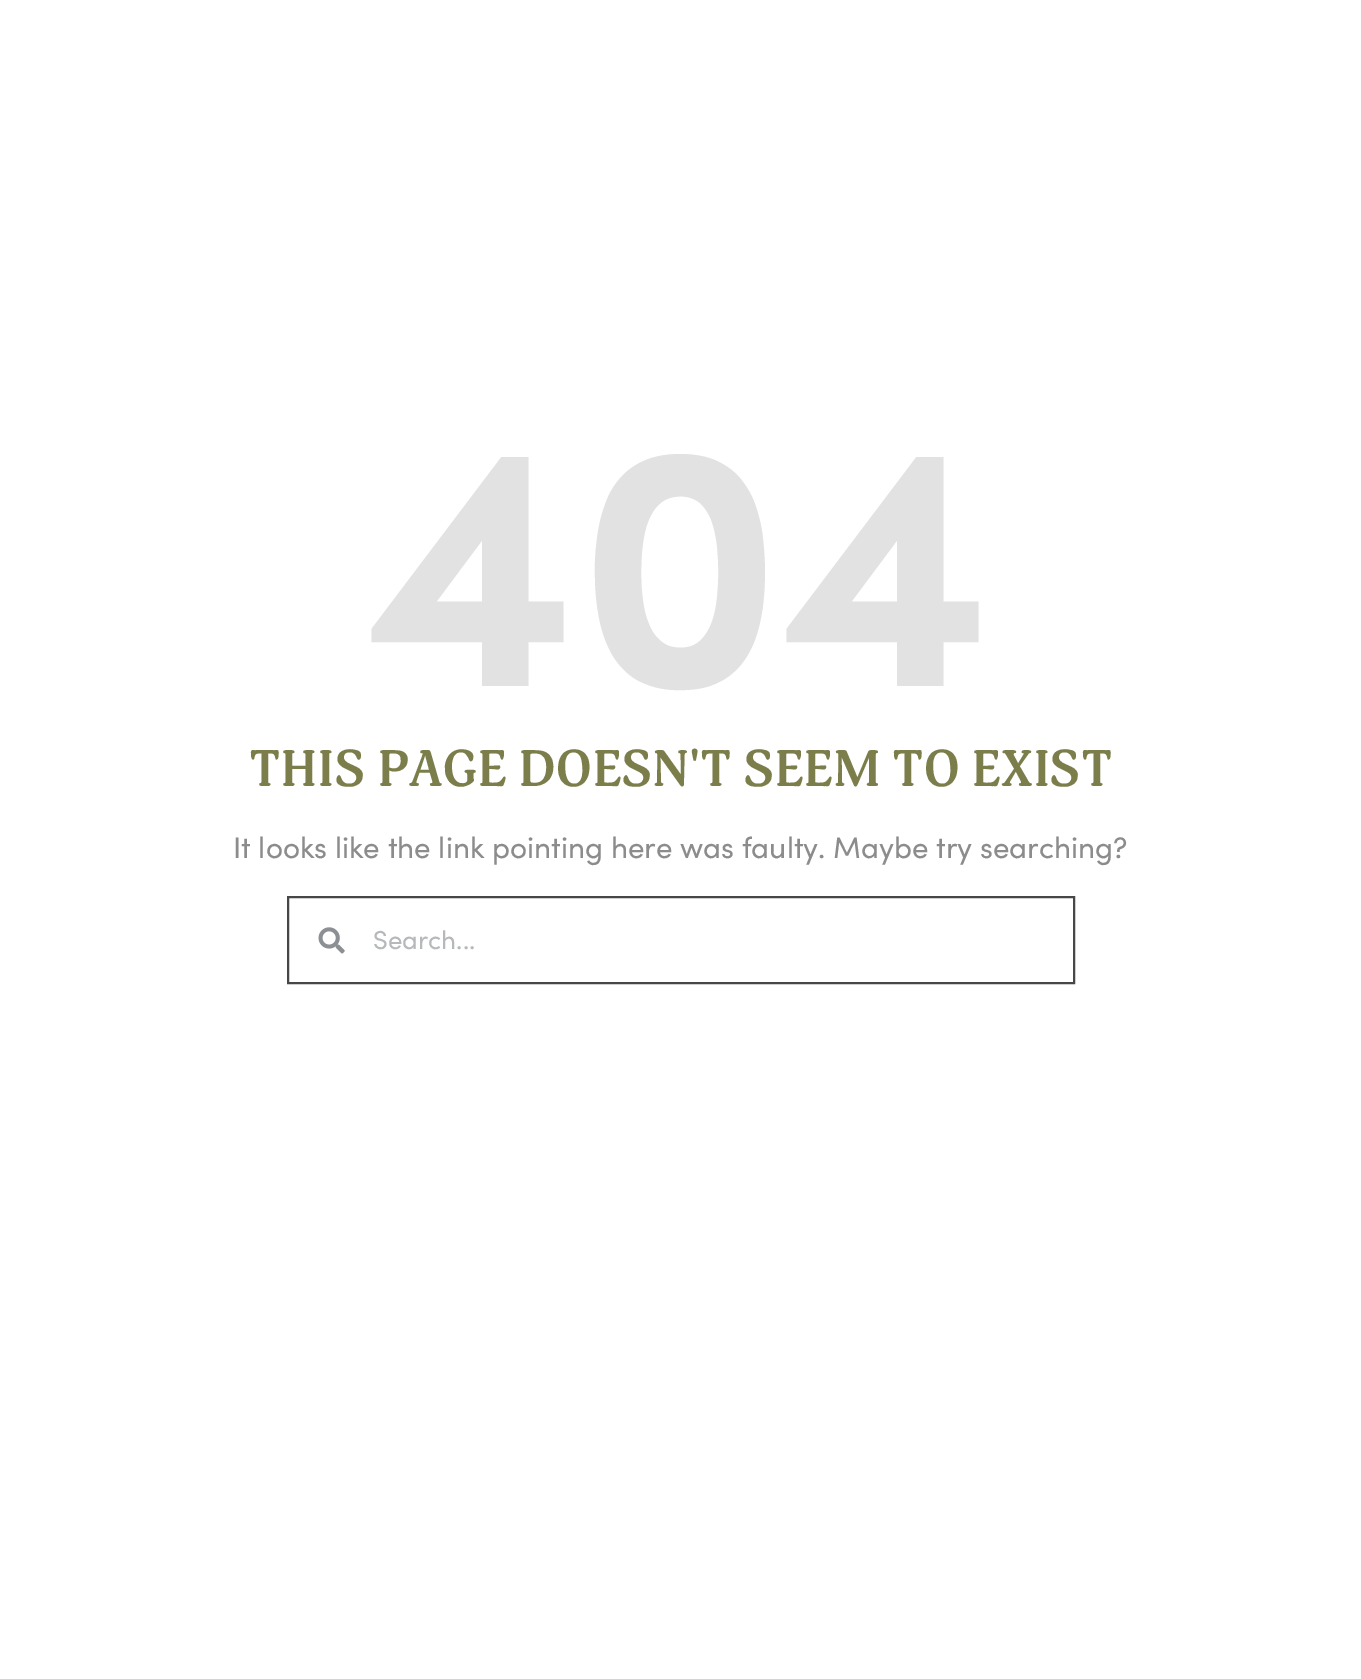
%!PS-Adobe-3.0
%%BoundingBox: 0 0 1361 1679
%%LanguageLevel: 3
%%Pages: 1
%%EndComments
%%BeginProlog
/w { setlinewidth } bind def
/fn { [ exch dup neg 0 0 3 -1 roll 0 0 ] selectfont } def
/tx { moveto show } def
/bx { rectfill } def
/im { 5 dict begin { /h /w /y /x /name } { exch def } forall
  gsave x y translate w h scale
  w h 8 [w 0 0 h 0 0] name (r) file false 3 colorimage grestore end } def
%%EndProlog
%%BeginSetup
<< /PageSize [1361 1679] >> setpagedevice
%%EndSetup
%%Page: 1 1
0 1679 translate 1 -1 scale
4 setmiterlimit
1 setgray
0 0 1361 1679 bx
/Sofia-Bold 350 fn
0.886 setgray
(404) 368 686 tx
/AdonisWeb-Bold 50.75 fn
0.482 0.494 0.29 setrgbcolor
(THIS PAGE DOESN'T SEEM TO EXIST) 249 786 tx
/Sofia-Regular 29.75 fn
0.549 setgray
(It looks like the link pointing here was faulty. Maybe try searching?) 233 858 tx
0.278 setgray
2 w
288 897 786 86 rectstroke
(image0.raw) 318 927 27 27 im
/Sofia-Regular 26 fn
0.714 0.725 0.733 setrgbcolor
(Search...) 373 949 tx
showpage
%%EOF
